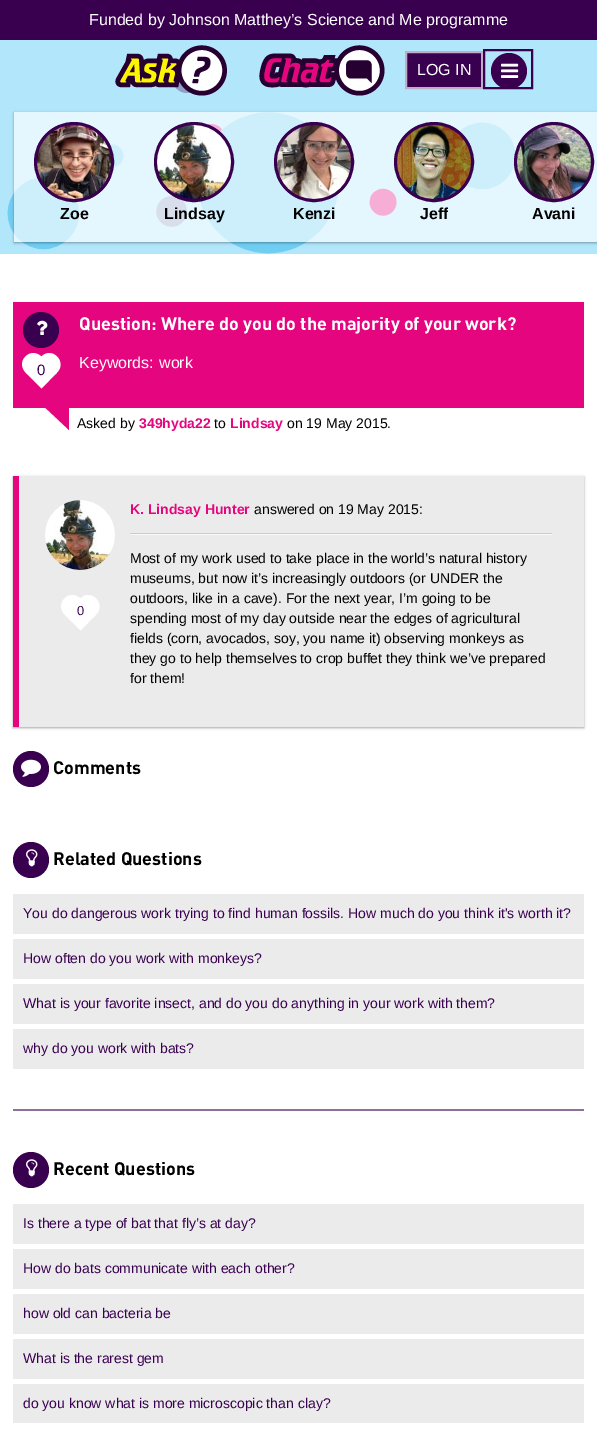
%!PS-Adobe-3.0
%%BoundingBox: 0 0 597 1434
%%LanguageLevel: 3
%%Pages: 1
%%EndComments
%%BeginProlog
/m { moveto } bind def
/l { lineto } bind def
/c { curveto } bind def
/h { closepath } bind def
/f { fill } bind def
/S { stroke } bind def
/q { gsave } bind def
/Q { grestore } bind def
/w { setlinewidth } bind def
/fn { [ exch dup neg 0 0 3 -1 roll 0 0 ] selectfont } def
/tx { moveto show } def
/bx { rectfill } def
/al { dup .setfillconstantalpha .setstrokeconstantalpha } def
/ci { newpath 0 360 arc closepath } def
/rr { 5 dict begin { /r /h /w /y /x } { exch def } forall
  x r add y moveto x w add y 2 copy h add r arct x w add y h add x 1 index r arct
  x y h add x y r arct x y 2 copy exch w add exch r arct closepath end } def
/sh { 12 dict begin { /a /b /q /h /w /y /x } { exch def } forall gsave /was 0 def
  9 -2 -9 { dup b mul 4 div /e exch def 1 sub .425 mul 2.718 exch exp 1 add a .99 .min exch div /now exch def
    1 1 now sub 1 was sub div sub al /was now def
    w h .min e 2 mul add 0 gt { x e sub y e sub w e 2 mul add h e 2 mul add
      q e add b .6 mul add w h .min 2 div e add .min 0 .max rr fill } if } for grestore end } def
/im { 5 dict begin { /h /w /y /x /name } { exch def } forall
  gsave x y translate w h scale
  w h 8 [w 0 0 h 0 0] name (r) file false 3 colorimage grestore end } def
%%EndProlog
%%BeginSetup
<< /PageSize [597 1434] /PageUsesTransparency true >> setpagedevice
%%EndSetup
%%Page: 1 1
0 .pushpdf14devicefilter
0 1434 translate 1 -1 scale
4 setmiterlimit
0.698 0.902 0.984 setrgbcolor
0 0 597 1434 bx
(image0.raw) 7 82 509 172 im
0.224 0 0.314 setrgbcolor
0 0 597 40 bx
/LiberationSans-Regular 16 fn
1 setgray
(Funded by Johnson Matthey’s Science and Me programme) 89 25 tx
(image1.raw) 115 45 112 51 im
(image2.raw) 259 45 126 51 im
0.224 0 0.314 setrgbcolor
406 52 m 482 52 l 482 88 l 406 88 l h q f Q
0.753 0.675 0.776 setrgbcolor
2 w
S
1 setgray
(LOG IN) 417 75 tx
0.224 0 0.314 setrgbcolor
484 50 48 38 rectstroke
509 71 18 ci f
(image3.raw) 501 63 18 15 im
q
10 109 m 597 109 l 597 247 l 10 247 l h 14 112 m 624 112 l 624 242 l 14 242 l h eoclip newpath
0 setgray
14 113 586 130 0 1 0.24 sh
Q
q
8 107 m 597 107 l 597 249 l 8 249 l h 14 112 m 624 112 l 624 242 l 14 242 l h eoclip newpath
0 setgray
14 113 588 130 0 1.5 0.12 sh
Q
0.65 al
1 setgray
14 112 583 130 bx
1 al
0.224 0 0.314 setrgbcolor
74 162 38.5 ci q f Q
3 w
S
(image4.raw) 37 125 74 74 im
/LiberationSans-Bold 16 fn
0 setgray
(Zoe) 60 219 tx
0.224 0 0.314 setrgbcolor
194 162 38.5 ci q f Q
S
(image5.raw) 157 125 74 74 im
0 setgray
(Lindsay) 164 219 tx
0.224 0 0.314 setrgbcolor
314 162 38.5 ci q f Q
S
(image6.raw) 277 125 74 74 im
0 setgray
(Kenzi) 293 219 tx
0.224 0 0.314 setrgbcolor
434 162 38.5 ci q f Q
S
(image7.raw) 397 125 74 74 im
q
420 202 28 24 rectclip
0 setgray
(Jeff) 420 219 tx
Q
554 162 38.5 ci q f Q
S
(image8.raw) 517 125 74 74 im
0 setgray
(Avani) 532 219 tx
1 setgray
0 254 597 1180 bx
0.894 0.02 0.498 setrgbcolor
13 302 571 106 bx
0.224 0 0.314 setrgbcolor
41 330 18 ci f
(image9.raw) 37 320 11 15 im
1 setgray
25.5 372.5 m 41.5 356.5 l 57 372.5 l 41.5 388.5 l h f
25.5 356.5 m 36 346 52 362 41.5 372.5 c 31 383 15 367 25.5 356.5 c h f
41.5 356.5 m 52 346 67.5 362 57 372.5 c 47 383 31 367 41.5 356.5 c h f
/LiberationSans-Regular 15 fn
0.224 0 0.314 setrgbcolor
(0) 37 375 tx
/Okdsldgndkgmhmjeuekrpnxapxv-Bold 18 fn
1 setgray
(Question: Where do you do the majority of your work?) 79 330 tx
/LiberationSans-Regular 16 fn
(Keywords:) 79 368 tx
(work) 159 368 tx
0.894 0.02 0.498 setrgbcolor
69 406 m 69 430 l 44 406.5 l h f
/LiberationSans-Regular 14 fn
0 setgray
(Asked by) 77 428 tx
/LiberationSans-Bold 14 fn
0.894 0.02 0.498 setrgbcolor
(349hyda22) 139 428 tx
/LiberationSans-Regular 14 fn
0 setgray
(to) 214 428 tx
/LiberationSans-Bold 14 fn
0.894 0.02 0.498 setrgbcolor
(Lindsay) 230 428 tx
/LiberationSans-Regular 14 fn
0 setgray
(on 19 May 2015.) 287 428 tx
13 477 571 251 0 1 0.24 sh
13 477 571 251 0 1.5 0.12 sh
0.922 setgray
19 476 565 251 bx
0.894 0.02 0.498 setrgbcolor
13 476 6 251 bx
(image10.raw) 45 500 70 70 im
1 setgray
64.5 614.5 m 80.5 598.5 l 96 614.5 l 80.5 630.5 l h f
64.5 598.5 m 75 588 91 604 80.5 614.5 c 70 625 54 609 64.5 598.5 c h f
80.5 598.5 m 91 588 106.5 604 96 614.5 c 86 625 70 609 80.5 598.5 c h f
/LiberationSans-Regular 13 fn
0.224 0 0.314 setrgbcolor
(0) 77 615 tx
/LiberationSans-Bold 14 fn
0.894 0.02 0.498 setrgbcolor
(K. Lindsay Hunter) 130 514 tx
/LiberationSans-Regular 14 fn
0 setgray
(answered on 19 May 2015:) 254 514 tx
0.98 0.969 0.969 setrgbcolor
130 534 422 1 bx
0.8 setgray
130 533 422 1 bx
0 setgray
(Most of my work used to take place in the world’s natural history) 130 563 tx
(museums, but now it’s increasingly outdoors \(or UNDER the) 130 583 tx
(outdoors, like in a cave\). For the next year, I’m going to be) 130 603 tx
(spending most of my day outside near the edges of agricultural) 130 623 tx
(fields \(corn, avocados, soy, you name it\) observing monkeys as) 130 643 tx
(they go to help themselves to crop buffet they think we’ve prepared) 130 663 tx
(for them!) 130 683 tx
0.224 0 0.314 setrgbcolor
31 769 18 ci f
(image11.raw) 21 759 20 18 im
/Okdsldgndkgmhmjeuekrpnxapxv-Bold 18 fn
0 setgray
(Comments) 53 774 tx
0.224 0 0.314 setrgbcolor
31 860 18 ci f
(image12.raw) 26 849 12 18 im
0 setgray
(Related Questions) 53 865 tx
0.922 setgray
13 894 571 40 bx
/LiberationSans-Regular 14 fn
0.224 0 0.314 setrgbcolor
(You do dangerous work trying to find human fossils. How much do you think it's worth it?) 23 918 tx
0.922 setgray
13 939 571 40 bx
0.224 0 0.314 setrgbcolor
(How often do you work with monkeys?) 23 963 tx
0.922 setgray
13 984 571 40 bx
0.224 0 0.314 setrgbcolor
(What is your favorite insect, and do you do anything in your work with them?) 23 1008 tx
0.922 setgray
13 1029 571 40 bx
0.224 0 0.314 setrgbcolor
(why do you work with bats?) 23 1053 tx
1 0.988 0.988 setrgbcolor
13 1111 571 1 bx
0.557 0.435 0.612 setrgbcolor
13 1109 571 2 bx
0.224 0 0.314 setrgbcolor
31 1170 18 ci f
(image12.raw) 26 1159 12 18 im
/Okdsldgndkgmhmjeuekrpnxapxv-Bold 18 fn
0 setgray
(Recent Questions) 53 1175 tx
0.922 setgray
13 1204 571 40 bx
/LiberationSans-Regular 14 fn
0.224 0 0.314 setrgbcolor
(Is there a type of bat that fly’s at day?) 23 1228 tx
0.922 setgray
13 1249 571 40 bx
0.224 0 0.314 setrgbcolor
(How do bats communicate with each other?) 23 1273 tx
0.922 setgray
13 1294 571 40 bx
0.224 0 0.314 setrgbcolor
(how old can bacteria be) 23 1318 tx
0.922 setgray
13 1339 571 40 bx
0.224 0 0.314 setrgbcolor
(What is the rarest gem) 23 1363 tx
0.922 setgray
13 1384 571 39 bx
0.224 0 0.314 setrgbcolor
(do you know what is more microscopic than clay?) 23 1408 tx
.poppdf14devicefilter showpage
%%EOF
